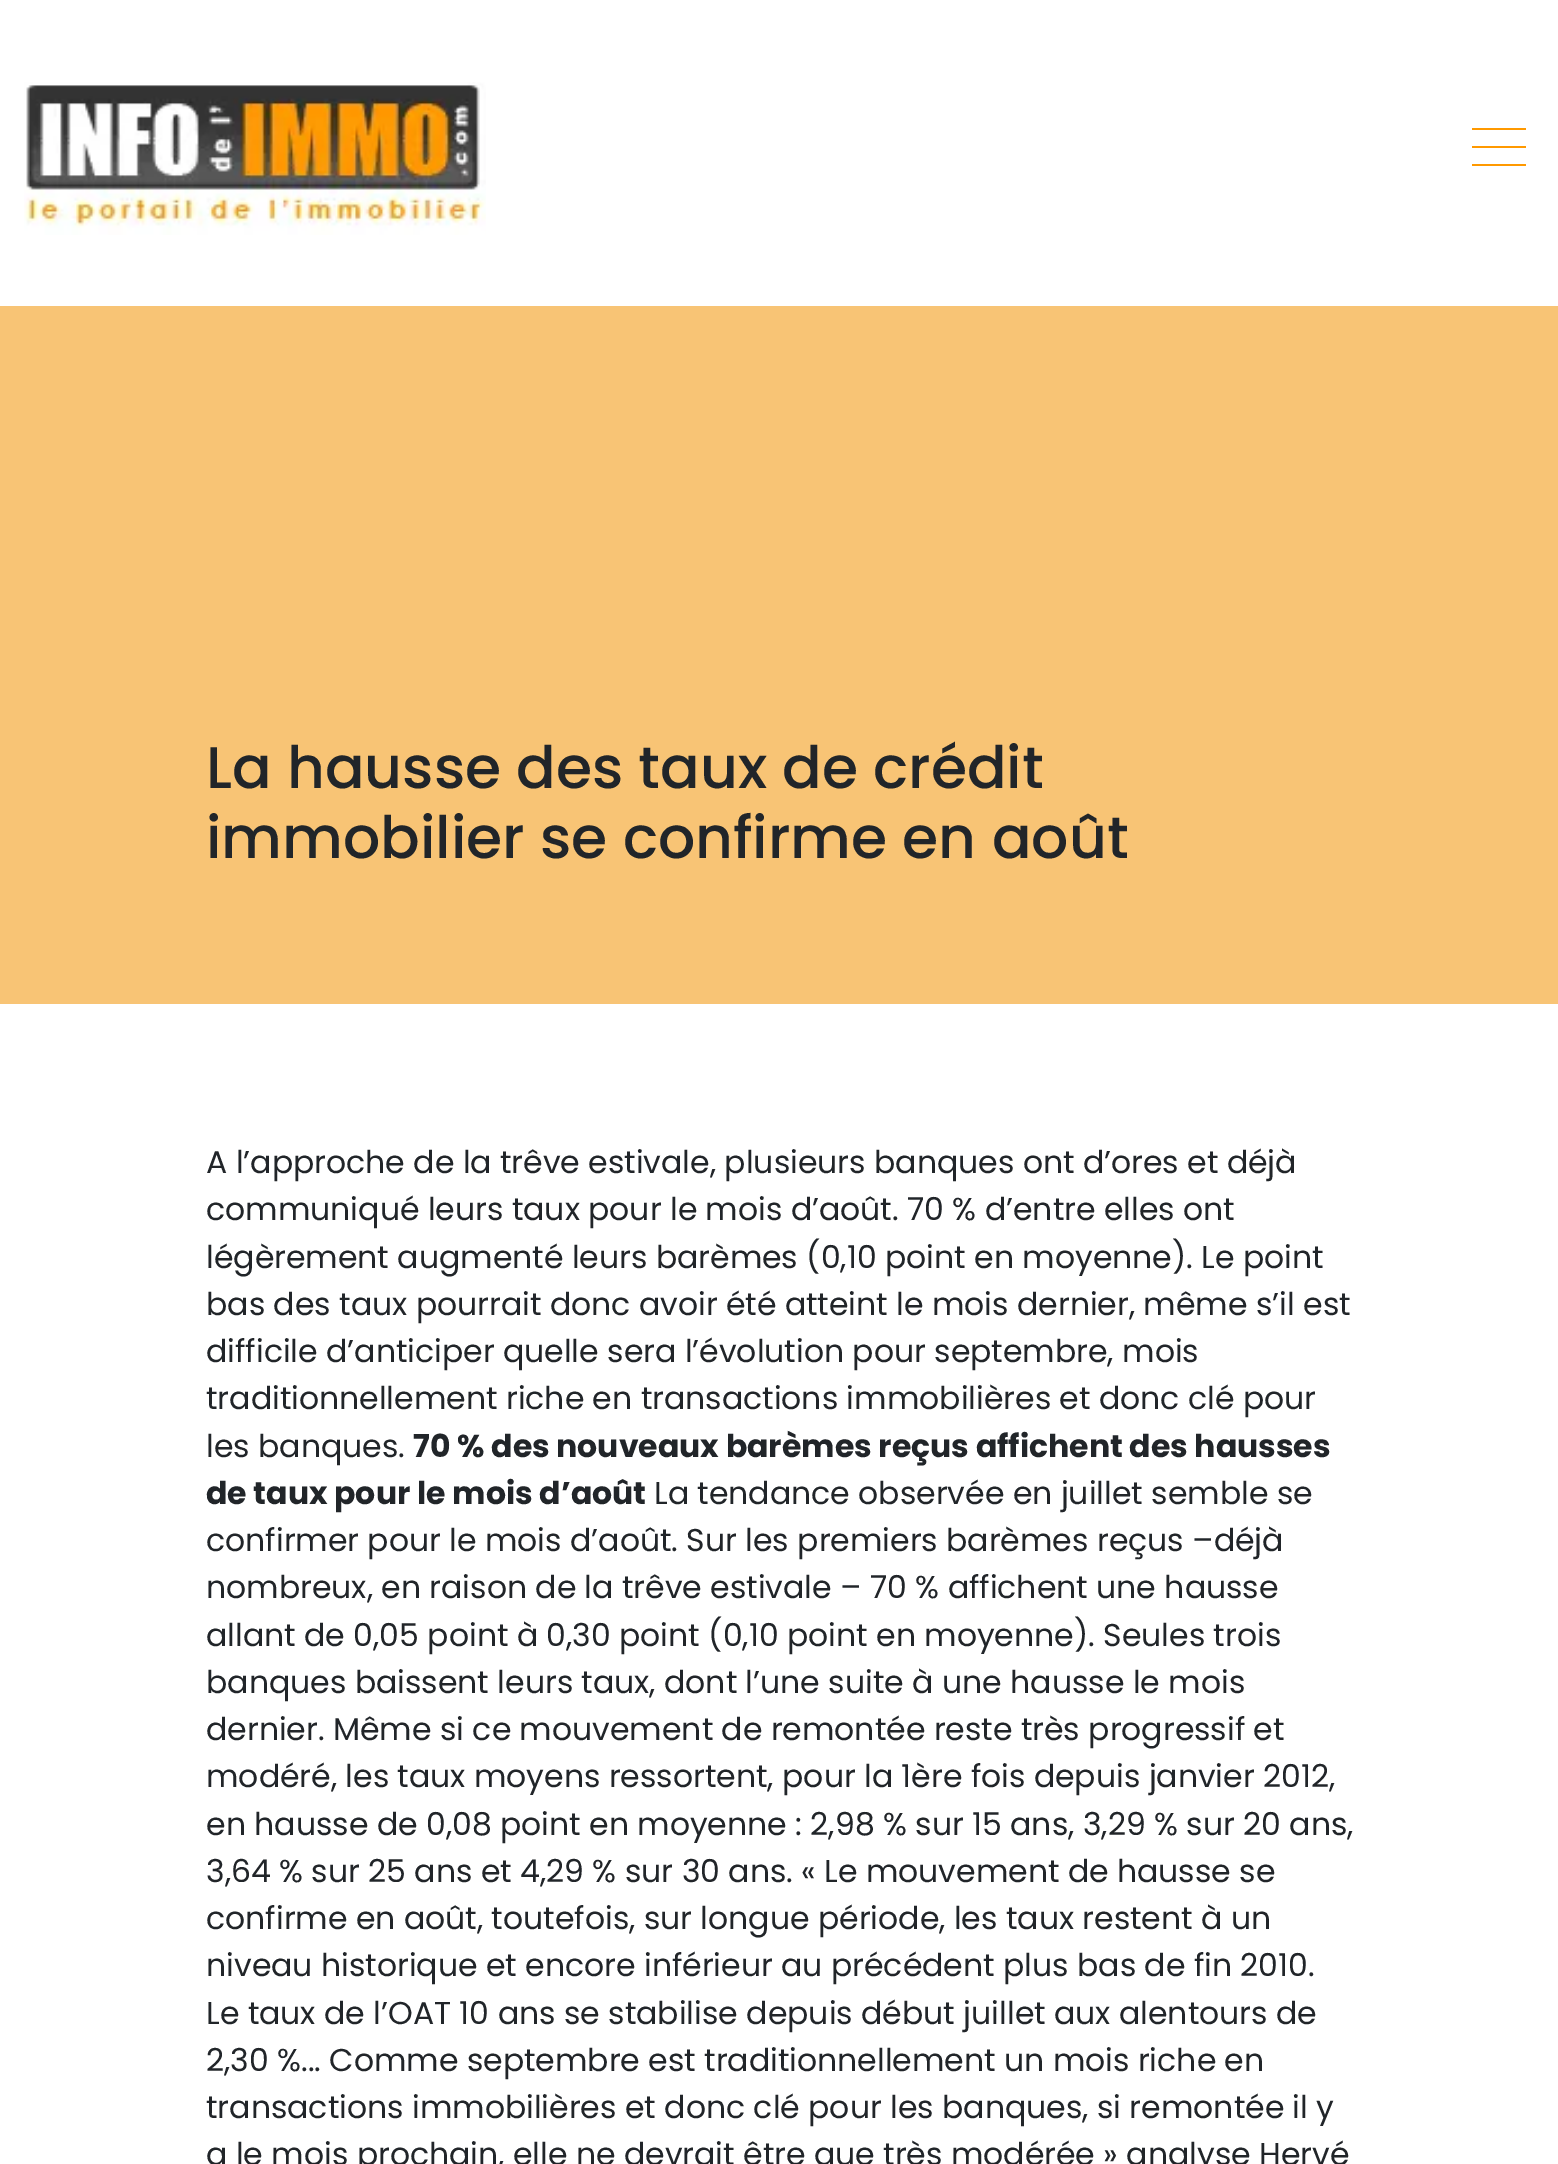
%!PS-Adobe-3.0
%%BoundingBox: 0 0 1558 2164
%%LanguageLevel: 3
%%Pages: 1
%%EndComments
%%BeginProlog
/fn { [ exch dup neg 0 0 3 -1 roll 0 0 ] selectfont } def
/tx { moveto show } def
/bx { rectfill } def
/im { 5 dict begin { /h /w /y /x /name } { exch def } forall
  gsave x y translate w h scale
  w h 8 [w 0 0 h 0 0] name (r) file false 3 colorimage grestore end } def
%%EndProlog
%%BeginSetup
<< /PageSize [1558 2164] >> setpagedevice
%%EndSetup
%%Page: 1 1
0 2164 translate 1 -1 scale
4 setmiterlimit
1 setgray
0 0 1558 2164 bx
(image0.raw) 24 82 462 153 im
1 0.6 0 setrgbcolor
1472 128 54 2 bx
1472 146 54 2 bx
1472 164 54 2 bx
0.973 0.769 0.459 setrgbcolor
0 306 1558 698 bx
/Poppins-Medium 58.5 fn
0.129 0.145 0.161 setrgbcolor
(La hausse des taux de crédit) 206 788 tx
(immobilier se confirme en août) 206 858 tx
/Poppins-Regular 31.5 fn
(A l’approche de la trêve estivale, plusieurs banques ont d’ores et déjà) 206 1173 tx
(communiqué leurs taux pour le mois d’août. 70 % d’entre elles ont) 206 1220 tx
(légèrement augmenté leurs barèmes \(0,10 point en moyenne\). Le point) 206 1268 tx
(bas des taux pourrait donc avoir été atteint le mois dernier, même s’il est) 206 1315 tx
(difficile d’anticiper quelle sera l’évolution pour septembre, mois) 206 1362 tx
(traditionnellement riche en transactions immobilières et donc clé pour) 206 1409 tx
(les banques.) 206 1457 tx
/Poppins-Bold 31.5 fn
(70 % des nouveaux barèmes reçus affichent des hausses) 413 1457 tx
(de taux pour le mois d’août) 206 1504 tx
/Poppins-Regular 31.5 fn
(La tendance observée en juillet semble se) 654 1504 tx
(confirmer pour le mois d’août. Sur les premiers barèmes reçus –déjà) 206 1551 tx
(nombreux, en raison de la trêve estivale – 70 % affichent une hausse) 206 1598 tx
(allant de 0,05 point à 0,30 point \(0,10 point en moyenne\). Seules trois) 206 1646 tx
(banques baissent leurs taux, dont l’une suite à une hausse le mois) 206 1693 tx
(dernier. Même si ce mouvement de remontée reste très progressif et) 206 1740 tx
(modéré, les taux moyens ressortent, pour la 1ère fois depuis janvier 2012,) 206 1787 tx
(en hausse de 0,08 point en moyenne : 2,98 % sur 15 ans, 3,29 % sur 20 ans,) 206 1835 tx
(3,64 % sur 25 ans et 4,29 % sur 30 ans. « Le mouvement de hausse se) 206 1882 tx
(confirme en août, toutefois, sur longue période, les taux restent à un) 206 1929 tx
(niveau historique et encore inférieur au précédent plus bas de fin 2010.) 206 1976 tx
(Le taux de l’OAT 10 ans se stabilise depuis début juillet aux alentours de) 206 2024 tx
(2,30 %... Comme septembre est traditionnellement un mois riche en) 206 2071 tx
(transactions immobilières et donc clé pour les banques, si remontée il y) 206 2118 tx
(a le mois prochain, elle ne devrait être que très modérée » analyse Hervé) 206 2165 tx
showpage
%%EOF
